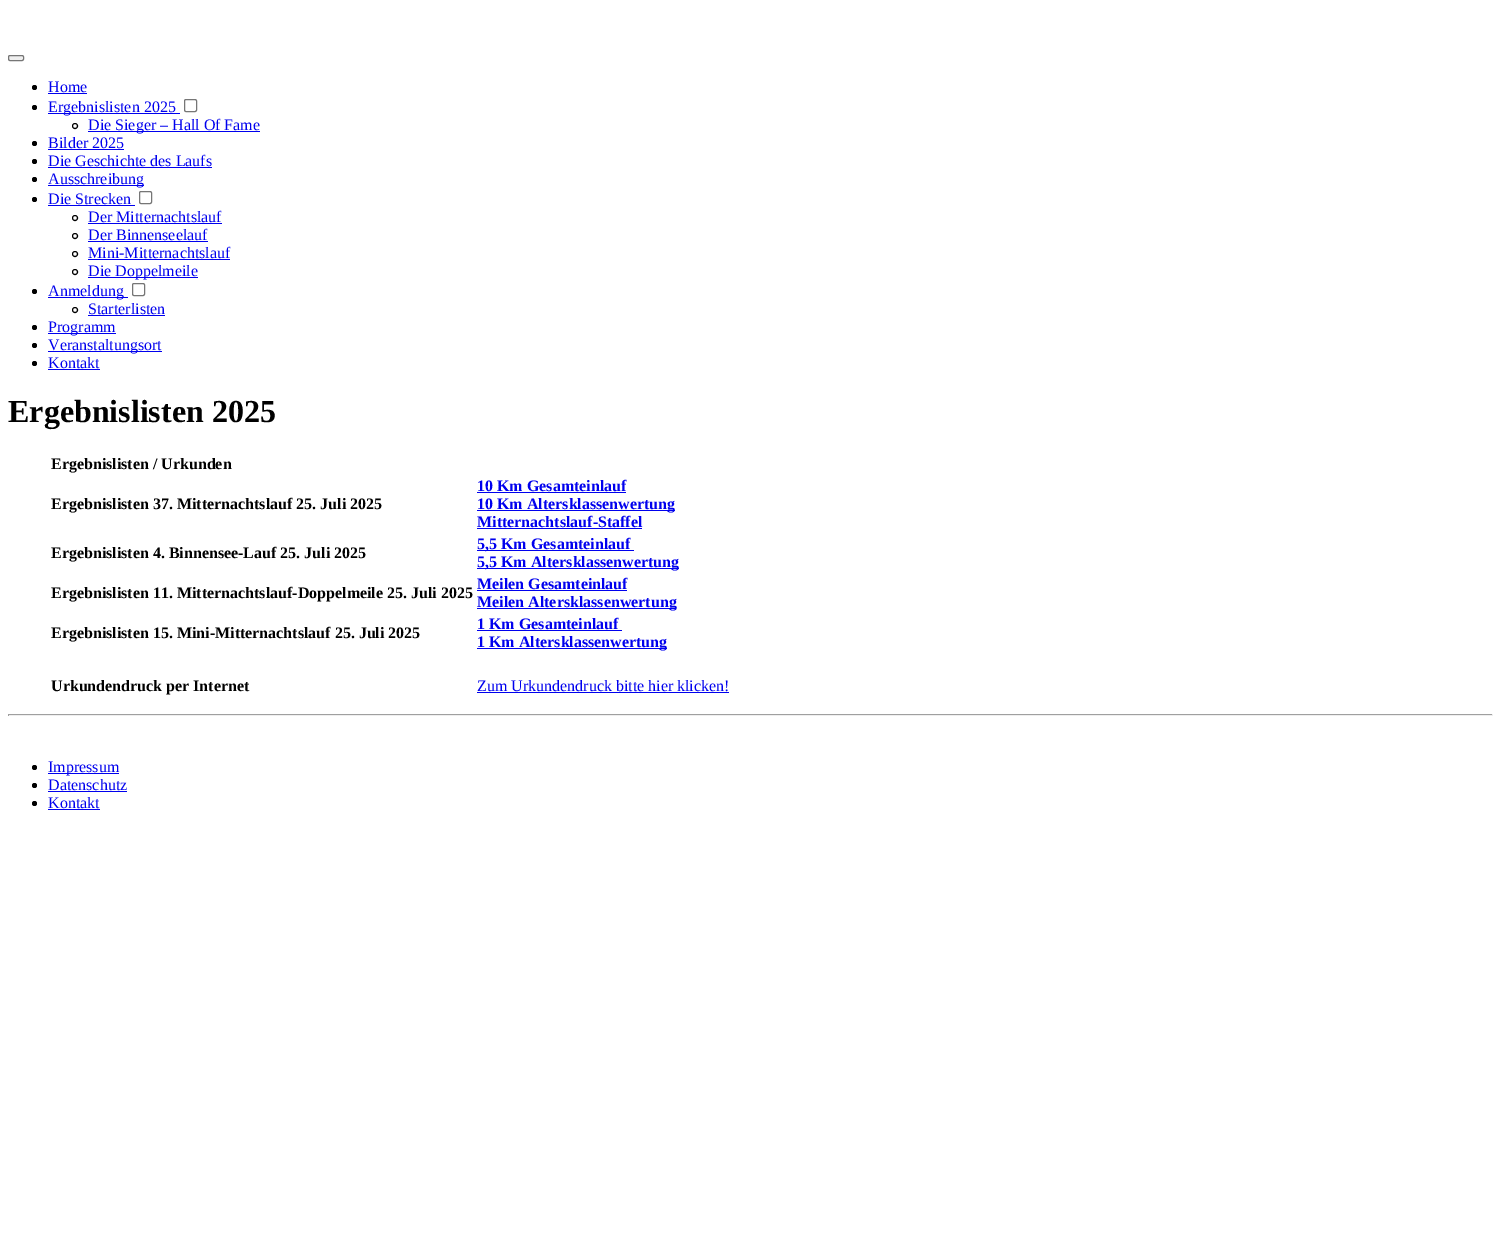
%!PS-Adobe-3.0
%%BoundingBox: 0 0 1501 1242
%%LanguageLevel: 3
%%Pages: 1
%%EndComments
%%BeginProlog
/f { fill } bind def
/S { stroke } bind def
/q { gsave } bind def
/Q { grestore } bind def
/fn { [ exch dup neg 0 0 3 -1 roll 0 0 ] selectfont } def
/tx { moveto show } def
/bx { rectfill } def
/ci { newpath 0 360 arc closepath } def
/rr { 5 dict begin { /r /h /w /y /x } { exch def } forall
  x r add y moveto x w add y 2 copy h add r arct x w add y h add x 1 index r arct
  x y h add x y r arct x y 2 copy exch w add exch r arct closepath end } def
%%EndProlog
%%BeginSetup
<< /PageSize [1501 1242] >> setpagedevice
%%EndSetup
%%Page: 1 1
0 1242 translate 1 -1 scale
4 setmiterlimit
1 setgray
0 0 1501 1242 bx
0.937 setgray
8.5 55.5 15 5 1.5 rr q f Q
0.463 setgray
S
0 setgray
34.5 87.5 2.5 ci f
/LiberationSerif-Regular 16 fn
0 0 0.933 setrgbcolor
(Home) 48 92 tx
48 93 39 1 bx
0 setgray
34.5 107.5 2.5 ci f
0 0 0.933 setrgbcolor
48 113 132 1 bx
(Ergebnislisten 2025) 48 112 tx
0.463 setgray
184.5 99.5 12 12 1.5 rr S
0 setgray
75 126 2.5 ci S
0 0 0.933 setrgbcolor
88 131 172 1 bx
(Die Sieger – Hall Of Fame) 88 130 tx
0 setgray
34.5 143.5 2.5 ci f
0 0 0.933 setrgbcolor
(Bilder 2025) 48 148 tx
48 149 76 1 bx
0 setgray
34.5 161.5 2.5 ci f
0 0 0.933 setrgbcolor
(Die Geschichte des Laufs) 48 166 tx
48 167 164 1 bx
0 setgray
34.5 179.5 2.5 ci f
0 0 0.933 setrgbcolor
48 185 96 1 bx
(Ausschreibung) 48 184 tx
0 setgray
34.5 199.5 2.5 ci f
0 0 0.933 setrgbcolor
(Die Strecken) 48 204 tx
48 205 87 1 bx
0.463 setgray
139.5 191.5 12 12 1.5 rr S
0 setgray
75 218 2.5 ci S
0 0 0.933 setrgbcolor
(Der Mitternachtslauf) 88 222 tx
88 223 134 1 bx
0 setgray
75 236 2.5 ci S
0 0 0.933 setrgbcolor
(Der Binnenseelauf) 88 240 tx
88 241 120 1 bx
0 setgray
75 254 2.5 ci S
0 0 0.933 setrgbcolor
(Mini-Mitternachtslauf) 88 258 tx
88 259 142 1 bx
0 setgray
75 272 2.5 ci S
0 0 0.933 setrgbcolor
88 277 110 1 bx
(Die Doppelmeile) 88 276 tx
0 setgray
34.5 291.5 2.5 ci f
0 0 0.933 setrgbcolor
48 297 80 1 bx
(Anmeldung) 48 296 tx
0.463 setgray
132.5 283.5 12 12 1.5 rr S
0 setgray
75 310 2.5 ci S
0 0 0.933 setrgbcolor
(Starterlisten) 88 314 tx
88 315 77 1 bx
0 setgray
34.5 327.5 2.5 ci f
0 0 0.933 setrgbcolor
48 333 68 1 bx
(Programm) 48 332 tx
0 setgray
34.5 345.5 2.5 ci f
0 0 0.933 setrgbcolor
48 351 114 1 bx
(Veranstaltungsort) 48 350 tx
0 setgray
34.5 363.5 2.5 ci f
0 0 0.933 setrgbcolor
(Kontakt) 48 368 tx
48 369 52 1 bx
/LiberationSerif-Bold 32 fn
0 setgray
(Ergebnislisten 2025) 8 422 tx
/LiberationSerif-Bold 16 fn
(Ergebnislisten / Urkunden) 51 469 tx
(Ergebnislisten 37. Mitternachtslauf 25. Juli 2025) 51 509 tx
0 0 0.933 setrgbcolor
(10 Km Gesamteinlauf) 477 491 tx
477 492 149 1 bx
477 510 198 1 bx
(10 Km Altersklassenwertung) 477 509 tx
(Mitternachtslauf-Staffel) 477 527 tx
477 528 165 1 bx
0 setgray
(Ergebnislisten 4. Binnensee-Lauf 25. Juli 2025) 51 558 tx
0 0 0.933 setrgbcolor
477 550 157 1 bx
(5,5 Km Gesamteinlauf) 477 549 tx
477 568 202 1 bx
(5,5 Km Altersklassenwertung) 477 567 tx
0 setgray
(Ergebnislisten 11. Mitternachtslauf-Doppelmeile 25. Juli 2025) 51 598 tx
0 0 0.933 setrgbcolor
(Meilen Gesamteinlauf) 477 589 tx
477 590 150 1 bx
477 608 199 1 bx
(Meilen Altersklassenwertung) 477 607 tx
0 setgray
(Ergebnislisten 15. Mini-Mitternachtslauf 25. Juli 2025) 51 638 tx
0 0 0.933 setrgbcolor
(1 Km Gesamteinlauf) 477 629 tx
477 630 145 1 bx
477 648 190 1 bx
(1 Km Altersklassenwertung) 477 647 tx
0 setgray
(Urkundendruck per Internet) 51 691 tx
/LiberationSerif-Regular 16 fn
0 0 0.933 setrgbcolor
(Zum Urkundendruck bitte hier klicken!) 477 691 tx
477 692 252 1 bx
0.624 setgray
8 714 1485 1 bx
0.933 setgray
1492 714 1 2 bx
8 715 1485 1 bx
0.624 setgray
8 714 1 2 bx
0 setgray
34.5 767.5 2.5 ci f
0 0 0.933 setrgbcolor
48 773 71 1 bx
(Impressum) 48 772 tx
0 setgray
34.5 785.5 2.5 ci f
0 0 0.933 setrgbcolor
(Datenschutz) 48 790 tx
48 791 79 1 bx
0 setgray
34.5 803.5 2.5 ci f
0 0 0.933 setrgbcolor
(Kontakt) 48 808 tx
48 809 52 1 bx
showpage
%%EOF
